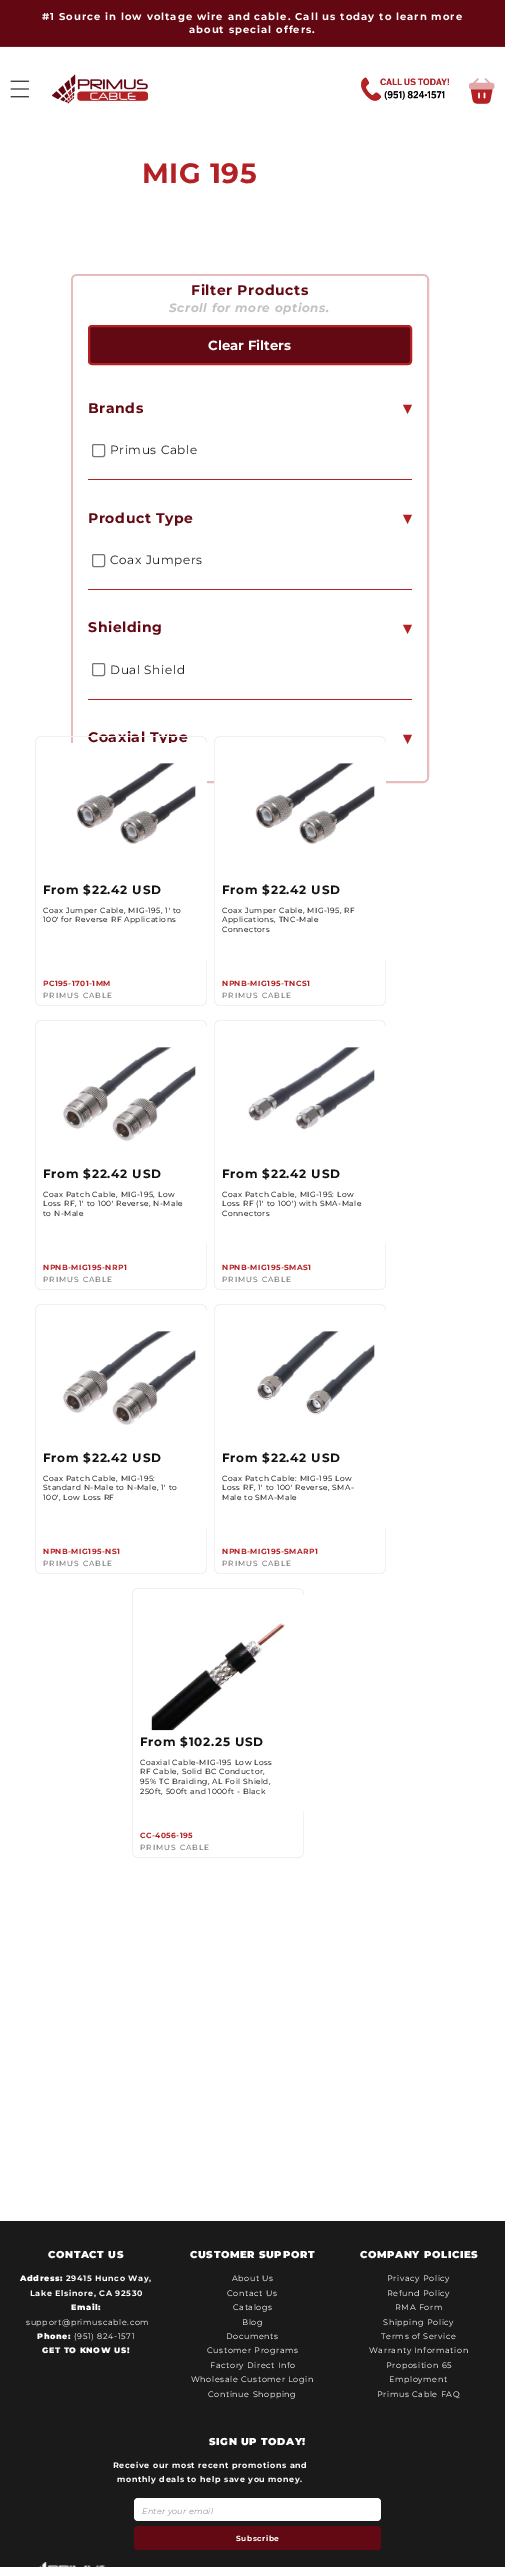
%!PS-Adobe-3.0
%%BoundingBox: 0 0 505 2567
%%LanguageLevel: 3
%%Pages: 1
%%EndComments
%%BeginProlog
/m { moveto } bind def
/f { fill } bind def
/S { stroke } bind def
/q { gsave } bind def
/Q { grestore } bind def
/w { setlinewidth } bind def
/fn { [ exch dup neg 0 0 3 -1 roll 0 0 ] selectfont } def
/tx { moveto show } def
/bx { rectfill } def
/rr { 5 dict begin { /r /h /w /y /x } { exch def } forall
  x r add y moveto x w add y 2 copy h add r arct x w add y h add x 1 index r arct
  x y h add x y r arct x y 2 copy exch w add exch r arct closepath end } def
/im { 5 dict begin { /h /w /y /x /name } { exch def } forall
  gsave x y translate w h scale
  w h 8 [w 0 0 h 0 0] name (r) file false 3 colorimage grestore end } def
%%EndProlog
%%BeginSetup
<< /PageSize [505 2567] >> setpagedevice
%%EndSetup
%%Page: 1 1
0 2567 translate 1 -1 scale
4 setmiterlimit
1 setgray
0 0 505 2567 bx
0.388 0.031 0.075 setrgbcolor
0 0 505 46 bx
0.435 0.11 0.149 setrgbcolor
0 46 505 1 bx
/Montserrat-Bold 10 fn
1 setgray
42 20 m 1 0 (#1 Source in low voltage wire and cable. Call us today to learn more) ashow
189 33 m 1 0 (about special offers.) ashow
(image0.raw) 10 80 20 18 im
(image1.raw) 52 74 96 30 im
(image2.raw) 361 77 89 24 im
(image3.raw) 468 78 27 26 im
/Montserrat-Bold 28 fn
0.702 0.129 0.141 setrgbcolor
142 183 m 0.6 0 (MIG 195) ashow
0.91 0.737 0.741 setrgbcolor
2 w
72 275 356 507 5 rr S
1 setgray
73 276 354 505 4 rr f
/Montserrat-Bold 14 fn
0.384 0.035 0.075 setrgbcolor
191 295 m 0.6 0 (Filter Products) ashow
/Montserrat-BoldItalic 12 fn
0.761 setgray
169 312 m 0.6 0 (Scroll for more options.) ashow
0.384 0.035 0.075 setrgbcolor
89 326 322 38 3 rr q f Q
0.702 0.129 0.141 setrgbcolor
S
/Montserrat-Bold 13.25 fn
1 setgray
(Clear Filters) 208 350 tx
0.702 0.129 0.141 setrgbcolor
88 479 324 1 bx
/Montserrat-Bold 14 fn
0.384 0.035 0.075 setrgbcolor
88 413 m 0.6 0 (Brands) ashow
/DejaVuSans-Bold 17 fn
0.702 0.129 0.141 setrgbcolor
403 414 m 0.6 0 (▾) ashow
0.463 setgray
1 w
92.5 444.5 12 12 1.5 rr S
/Montserrat-Regular 12 fn
0.122 setgray
110 454 m 0.6 0 (Primus Cable) ashow
0.702 0.129 0.141 setrgbcolor
88 589 324 1 bx
/Montserrat-Bold 14 fn
0.384 0.035 0.075 setrgbcolor
88 523 m 0.6 0 (Product Type) ashow
/DejaVuSans-Bold 17 fn
0.702 0.129 0.141 setrgbcolor
403 524 m 0.6 0 (▾) ashow
0.463 setgray
92.5 554.5 12 12 1.5 rr S
/Montserrat-Regular 12 fn
0.122 setgray
110 564 m 0.6 0 (Coax Jumpers) ashow
0.702 0.129 0.141 setrgbcolor
88 699 324 1 bx
/Montserrat-Bold 14 fn
0.384 0.035 0.075 setrgbcolor
88 632 m 0.6 0 (Shielding) ashow
/DejaVuSans-Bold 17 fn
0.702 0.129 0.141 setrgbcolor
403 634 m 0.6 0 (▾) ashow
0.463 setgray
92.5 663.5 12 12 1.5 rr S
/Montserrat-Regular 12 fn
0.122 setgray
110 674 m 0.6 0 (Dual Shield) ashow
/Montserrat-Bold 14 fn
0.384 0.035 0.075 setrgbcolor
88 742 m 0.6 0 (Coaxial Type) ashow
/DejaVuSans-Bold 17 fn
0.702 0.129 0.141 setrgbcolor
403 744 m 0.6 0 (▾) ashow
0.945 setgray
0.8 w
35.4 736.4 171.2 269.2 5.6 rr S
1 setgray
71 743 136 216 bx
(image4.raw) 76 763 120 81 im
/Montserrat-Bold 12 fn
0.071 setgray
43 894 m 0.75 0 (From $22.42 USD) ashow
/Montserrat-Regular 7.5 fn
0 setgray
43 913 m 0.45 0 (Coax Jumper Cable, MIG-195, 1' to) ashow
43 922 m 0.45 0 (100' for Reverse RF Applications) ashow
/Montserrat-Bold 7.5 fn
0.702 0.129 0.141 setrgbcolor
43 986 m 0.45 0 (PC195-1701-1MM) ashow
/Montserrat-Regular 7.5 fn
0.349 setgray
43 998 m 1 0 (PRIMUS CABLE) ashow
0.945 setgray
214.4 736.4 171.2 269.2 5.6 rr S
1 setgray
215 743 171 216 bx
(image4.raw) 255 763 120 81 im
/Montserrat-Bold 12 fn
0.071 setgray
222 894 m 0.75 0 (From $22.42 USD) ashow
/Montserrat-Regular 7.5 fn
0 setgray
222 913 m 0.45 0 (Coax Jumper Cable, MIG-195, RF) ashow
222 922 m 0.45 0 (Applications, TNC-Male) ashow
222 932 m 0.45 0 (Connectors) ashow
/Montserrat-Bold 7.5 fn
0.702 0.129 0.141 setrgbcolor
222 986 m 0.45 0 (NPNB-MIG195-TNCS1) ashow
/Montserrat-Regular 7.5 fn
0.349 setgray
222 998 m 1 0 (PRIMUS CABLE) ashow
0.945 setgray
35.4 1020.4 171.2 269.2 5.6 rr S
(image5.raw) 63 1047 133 94 im
1 setgray
206 1027 1 216 bx
/Montserrat-Bold 12 fn
0.071 setgray
43 1178 m 0.75 0 (From $22.42 USD) ashow
/Montserrat-Regular 7.5 fn
0 setgray
43 1197 m 0.45 0 (Coax Patch Cable, MIG-195, Low) ashow
43 1206 m 0.45 0 (Loss RF, 1' to 100' Reverse, N-Male) ashow
43 1216 m 0.45 0 (to N-Male) ashow
/Montserrat-Bold 7.5 fn
0.702 0.129 0.141 setrgbcolor
43 1270 m 0.45 0 (NPNB-MIG195-NRP1) ashow
/Montserrat-Regular 7.5 fn
0.349 setgray
43 1282 m 1 0 (PRIMUS CABLE) ashow
0.945 setgray
214.4 1020.4 171.2 269.2 5.6 rr S
(image6.raw) 248 1047 127 83 im
1 setgray
385 1027 1 216 bx
/Montserrat-Bold 12 fn
0.071 setgray
222 1178 m 0.75 0 (From $22.42 USD) ashow
/Montserrat-Regular 7.5 fn
0 setgray
222 1197 m 0.45 0 (Coax Patch Cable, MIG-195: Low) ashow
222 1206 m 0.45 0 (Loss RF \(1' to 100'\) with SMA-Male) ashow
222 1216 m 0.45 0 (Connectors) ashow
/Montserrat-Bold 7.5 fn
0.702 0.129 0.141 setrgbcolor
222 1270 m 0.45 0 (NPNB-MIG195-SMAS1) ashow
/Montserrat-Regular 7.5 fn
0.349 setgray
222 1282 m 1 0 (PRIMUS CABLE) ashow
0.945 setgray
35.4 1304.4 171.2 269.2 5.6 rr S
(image5.raw) 63 1331 133 94 im
1 setgray
206 1311 1 216 bx
/Montserrat-Bold 12 fn
0.071 setgray
43 1462 m 0.75 0 (From $22.42 USD) ashow
/Montserrat-Regular 7.5 fn
0 setgray
43 1481 m 0.45 0 (Coax Patch Cable, MIG-195:) ashow
43 1490 m 0.45 0 (Standard N-Male to N-Male, 1' to) ashow
43 1500 m 0.45 0 (100', Low Loss RF) ashow
/Montserrat-Bold 7.5 fn
0.702 0.129 0.141 setrgbcolor
43 1554 m 0.45 0 (NPNB-MIG195-NS1) ashow
/Montserrat-Regular 7.5 fn
0.349 setgray
43 1566 m 1 0 (PRIMUS CABLE) ashow
0.945 setgray
214.4 1304.4 171.2 269.2 5.6 rr S
(image7.raw) 256 1331 119 84 im
1 setgray
385 1311 1 216 bx
/Montserrat-Bold 12 fn
0.071 setgray
222 1462 m 0.75 0 (From $22.42 USD) ashow
/Montserrat-Regular 7.5 fn
0 setgray
222 1481 m 0.45 0 (Coax Patch Cable: MIG-195 Low) ashow
222 1490 m 0.45 0 (Loss RF, 1' to 100' Reverse, SMA-) ashow
222 1500 m 0.45 0 (Male to SMA-Male) ashow
/Montserrat-Bold 7.5 fn
0.702 0.129 0.141 setrgbcolor
222 1554 m 0.45 0 (NPNB-MIG195-SMARP1) ashow
/Montserrat-Regular 7.5 fn
0.349 setgray
222 1566 m 1 0 (PRIMUS CABLE) ashow
0.945 setgray
132.4 1588.4 171.2 269.2 5.6 rr S
(image8.raw) 151 1623 134 108 im
1 setgray
303 1595 1 216 bx
/Montserrat-Bold 12 fn
0.071 setgray
140 1746 m 0.75 0 (From $102.25 USD) ashow
/Montserrat-Regular 7.5 fn
0 setgray
140 1765 m 0.45 0 (Coaxial Cable-MIG-195 Low Loss) ashow
140 1774 m 0.45 0 (RF Cable, Solid BC Conductor,) ashow
140 1784 m 0.45 0 (95% TC Braiding, AL Foil Shield,) ashow
140 1794 m 0.45 0 (250ft, 500ft and 1000ft - Black) ashow
/Montserrat-Bold 7.5 fn
0.702 0.129 0.141 setrgbcolor
140 1838 m 0.45 0 (CC-4056-195) ashow
/Montserrat-Regular 7.5 fn
0.349 setgray
140 1850 m 1 0 (PRIMUS CABLE) ashow
0.102 setgray
0 2221 505 346 bx
/Montserrat-Black 10 fn
1 setgray
48 2258 m 0.6 0 (CONTACT US) ashow
/Montserrat-Black 8 fn
20 2281 m 0.6 0 (Address:) ashow
/Montserrat-Bold 8 fn
66 2281 m 0.6 0 (29415 Hunco Way,) ashow
30 2296 m 0.6 0 (Lake Elsinore, CA 92530) ashow
/Montserrat-Black 8 fn
71 2310 m 0.6 0 (Email:) ashow
/Montserrat-Regular 8 fn
26 2325 m 0.6 0 (support@primuscable.com) ashow
/Montserrat-Black 8 fn
37 2339 m 0.6 0 (Phone:) ashow
/Montserrat-Regular 8 fn
74 2339 m 0.6 0 (\(951\) 824-1571) ashow
/Montserrat-Black 8 fn
42 2353 m 0.6 0 (GET TO KNOW US!) ashow
/Montserrat-Black 10 fn
190 2258 m 0.6 0 (CUSTOMER SUPPORT) ashow
/Montserrat-Regular 8 fn
232 2281 m 0.6 0 (About Us) ashow
227 2296 m 0.6 0 (Contact Us) ashow
233 2310 m 0.6 0 (Catalogs) ashow
242 2325 m 0.6 0 (Blog) ashow
226 2339 m 0.6 0 (Documents) ashow
207 2353 m 0.6 0 (Customer Programs) ashow
210 2368 m 0.6 0 (Factory Direct Info) ashow
191 2382 m 0.6 0 (Wholesale Customer Login) ashow
208 2397 m 0.6 0 (Continue Shopping) ashow
/Montserrat-Black 10 fn
360 2258 m 0.6 0 (COMPANY POLICIES) ashow
/Montserrat-Regular 8 fn
387 2281 m 0.6 0 (Privacy Policy) ashow
387 2296 m 0.6 0 (Refund Policy) ashow
395 2310 m 0.6 0 (RMA Form) ashow
383 2325 m 0.6 0 (Shipping Policy) ashow
381 2339 m 0.6 0 (Terms of Service) ashow
369 2353 m 0.6 0 (Warranty Information) ashow
386 2368 m 0.6 0 (Proposition 65) ashow
389 2382 m 0.6 0 (Employment) ashow
377 2397 m 0.6 0 (Primus Cable FAQ) ashow
/Montserrat-Black 10 fn
209 2445 m 0.6 0 (SIGN UP TODAY!) ashow
/Montserrat-Bold 8 fn
113 2468 m 0.6 0 (Receive our most recent promotions and) ashow
117 2482 m 0.6 0 (monthly deals to help save you money.) ashow
134 2498 247 23 4 rr f
/Montserrat-Italic 8 fn
0.6 setgray
142 2514 m 0.25 0 (Enter your email) ashow
0.384 0.035 0.075 setrgbcolor
134 2526 247 24 4 rr f
/Montserrat-Bold 7.5 fn
1 setgray
236 2541 m 0.5 0 (Subscribe) ashow
(image9.raw) 39 2562 67 5 im
showpage
%%EOF
